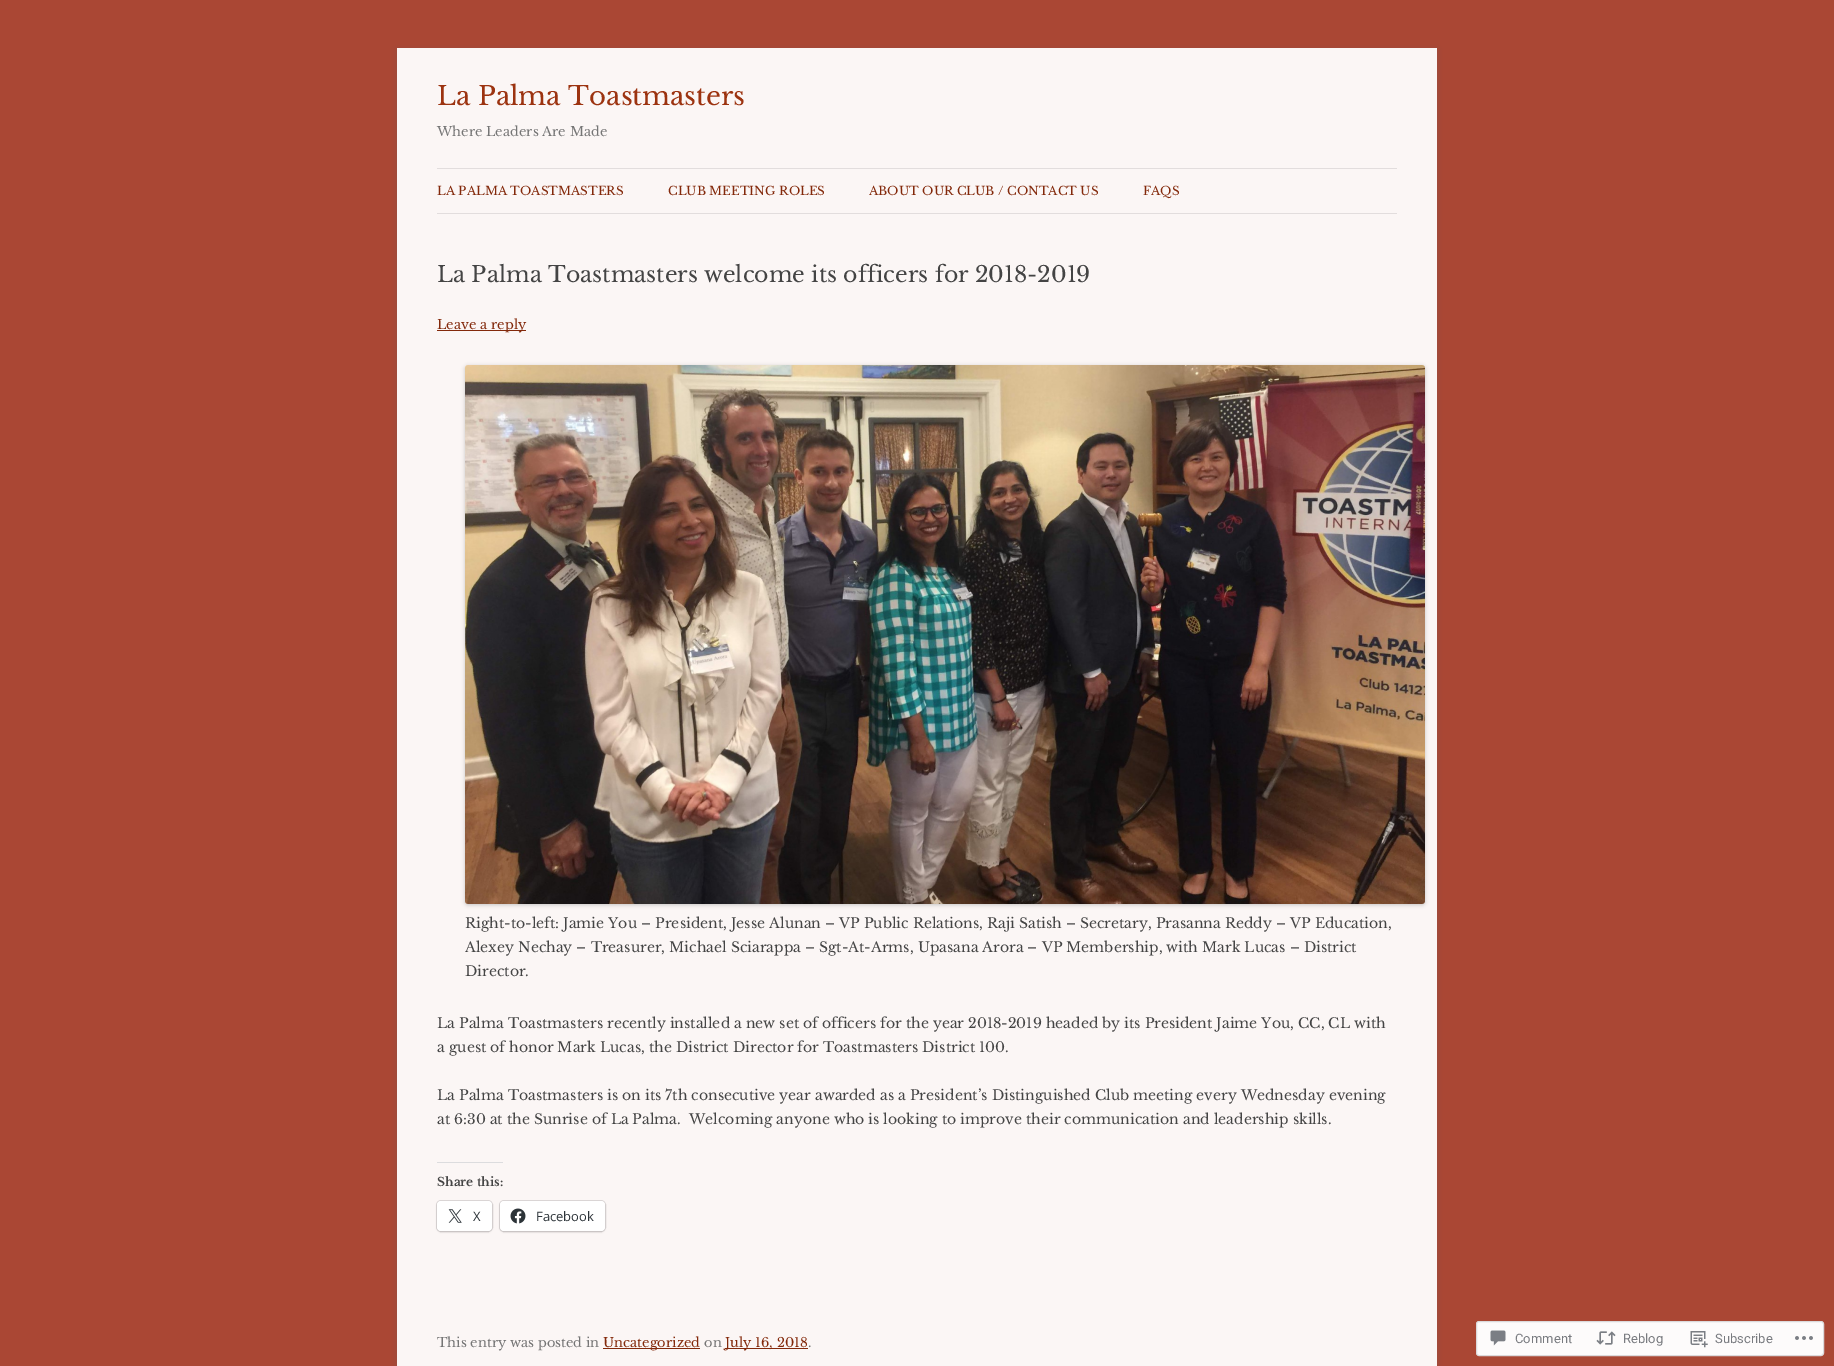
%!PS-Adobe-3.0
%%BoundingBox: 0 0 1834 1366
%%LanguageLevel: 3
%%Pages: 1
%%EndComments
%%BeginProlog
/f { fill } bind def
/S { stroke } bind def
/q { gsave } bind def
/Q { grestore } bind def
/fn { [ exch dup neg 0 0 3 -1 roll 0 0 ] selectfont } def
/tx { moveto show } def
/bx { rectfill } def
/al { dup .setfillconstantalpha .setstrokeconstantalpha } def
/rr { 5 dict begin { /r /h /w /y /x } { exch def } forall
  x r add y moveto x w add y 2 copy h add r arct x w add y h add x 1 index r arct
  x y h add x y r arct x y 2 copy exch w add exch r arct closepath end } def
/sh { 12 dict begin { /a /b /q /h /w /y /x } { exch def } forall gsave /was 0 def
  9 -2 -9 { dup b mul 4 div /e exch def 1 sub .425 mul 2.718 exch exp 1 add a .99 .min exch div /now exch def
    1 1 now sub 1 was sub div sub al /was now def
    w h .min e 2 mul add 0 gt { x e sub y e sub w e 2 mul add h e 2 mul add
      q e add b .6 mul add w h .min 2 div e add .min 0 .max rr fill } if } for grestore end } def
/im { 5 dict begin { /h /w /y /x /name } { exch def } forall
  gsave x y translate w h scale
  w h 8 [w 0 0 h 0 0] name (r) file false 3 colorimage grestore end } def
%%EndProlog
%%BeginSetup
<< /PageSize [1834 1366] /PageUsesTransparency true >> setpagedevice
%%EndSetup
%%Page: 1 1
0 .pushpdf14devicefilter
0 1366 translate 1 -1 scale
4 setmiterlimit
0.667 0.278 0.204 setrgbcolor
0 0 1834 1366 bx
0.392 setgray
397 50 1040 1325 0 3 0.3 sh
0.984 0.965 0.961 setrgbcolor
397 48 1040 1318 bx
/LibreBaskerville-Regular 26 fn
0.612 0.2 0.063 setrgbcolor
(La Palma Toastmasters) 437 105 tx
/LibreBaskerville-Regular 13 fn
0.459 setgray
(Where Leaders Are Made) 437 136 tx
0.886 0.867 0.867 setrgbcolor
437 168 960 1 bx
437 213 960 1 bx
/LibreBaskerville-Regular 12 fn
0.514 0.161 0.043 setrgbcolor
(LA PALMA TOASTMASTERS) 437 195 tx
(CLUB MEETING ROLES) 668 195 tx
(ABOUT OUR CLUB / CONTACT US) 869 195 tx
(FAQS) 1143 195 tx
/LibreBaskerville-Regular 22 fn
0.267 setgray
(La Palma Toastmasters welcome its officers for 2018-2019) 437 282 tx
0.514 0.161 0.043 setrgbcolor
437 330 89 1 bx
/LibreBaskerville-Regular 13 fn
(Leave a reply) 437 329 tx
0 setgray
465 366 960 539 3 2 0.2 sh
(image0.raw) 465 365 960 539 im
/LibreBaskerville-Regular 14 fn
0.267 setgray
(Right-to-left: Jamie You – President, Jesse Alunan – VP Public Relations, Raji Satish – Secretary, Prasanna Reddy – VP Education,) 465 928 tx
(Alexey Nechay – Treasurer, Michael Sciarappa – Sgt-At-Arms, Upasana Arora – VP Membership, with Mark Lucas – District) 465 952 tx
(Director.) 465 976 tx
(La Palma Toastmasters recently installed a new set of officers for the year 2018-2019 headed by its President Jaime You, CC, CL with) 437 1028 tx
(a guest of honor Mark Lucas, the District Director for Toastmasters District 100.) 437 1052 tx
(La Palma Toastmasters is on its 7th consecutive year awarded as a President’s Distinguished Club meeting every Wednesday evening) 437 1100 tx
(at 6:30 at the Sunrise of La Palma.  Welcoming anyone who is looking to improve their communication and leadership skills.) 437 1124 tx
0.863 0.863 0.871 setrgbcolor
437 1162 66 1 bx
/LibreBaskerville-Bold 12 fn
0.267 setgray
(Share this:) 437 1186 tx
0.867 0.847 0.847 setrgbcolor
436.5 1200.5 56 31 4.5 rr S
0 setgray
437 1202 55 30 4 1 0.12 sh
1 setgray
437 1201 55 30 4 rr f
(image1.raw) 448 1209 14 14 im
/OpenSans-Regular 13 fn
0.173 0.2 0.22 setrgbcolor
(X) 473 1221 tx
0.867 0.847 0.847 setrgbcolor
499.5 1200.5 106 31 4.5 rr S
0 setgray
500 1202 105 30 4 1 0.12 sh
1 setgray
500 1201 105 30 4 rr f
(image2.raw) 510 1208 16 16 im
0.173 0.2 0.22 setrgbcolor
(Facebook) 536 1221 tx
/LibreBaskerville-Regular 13 fn
0.459 setgray
(This entry was posted in) 437 1347 tx
0.514 0.161 0.043 setrgbcolor
603 1348 97 1 bx
(Uncategorized) 603 1347 tx
0.459 setgray
(on) 704 1347 tx
0.514 0.161 0.043 setrgbcolor
725 1348 83 1 bx
(July 16, 2018) 725 1347 tx
0.459 setgray
(.) 808 1347 tx
0.992 0.984 0.984 setrgbcolor
1476.5 1321.5 347 34 2.5 rr q f Q
0.859 0.851 0.859 setrgbcolor
S
(image3.raw) 1490 1330 16 16 im
/Roboto-Regular 13 fn
0.475 0.482 0.502 setrgbcolor
(Comment) 1515 1343 tx
(image4.raw) 1596 1331 20 14 im
(Reblog) 1623 1343 tx
(image5.raw) 1690 1331 18 17 im
(Subscribe) 1715 1343 tx
(image6.raw) 1795 1336 18 4 im
.poppdf14devicefilter showpage
%%EOF
